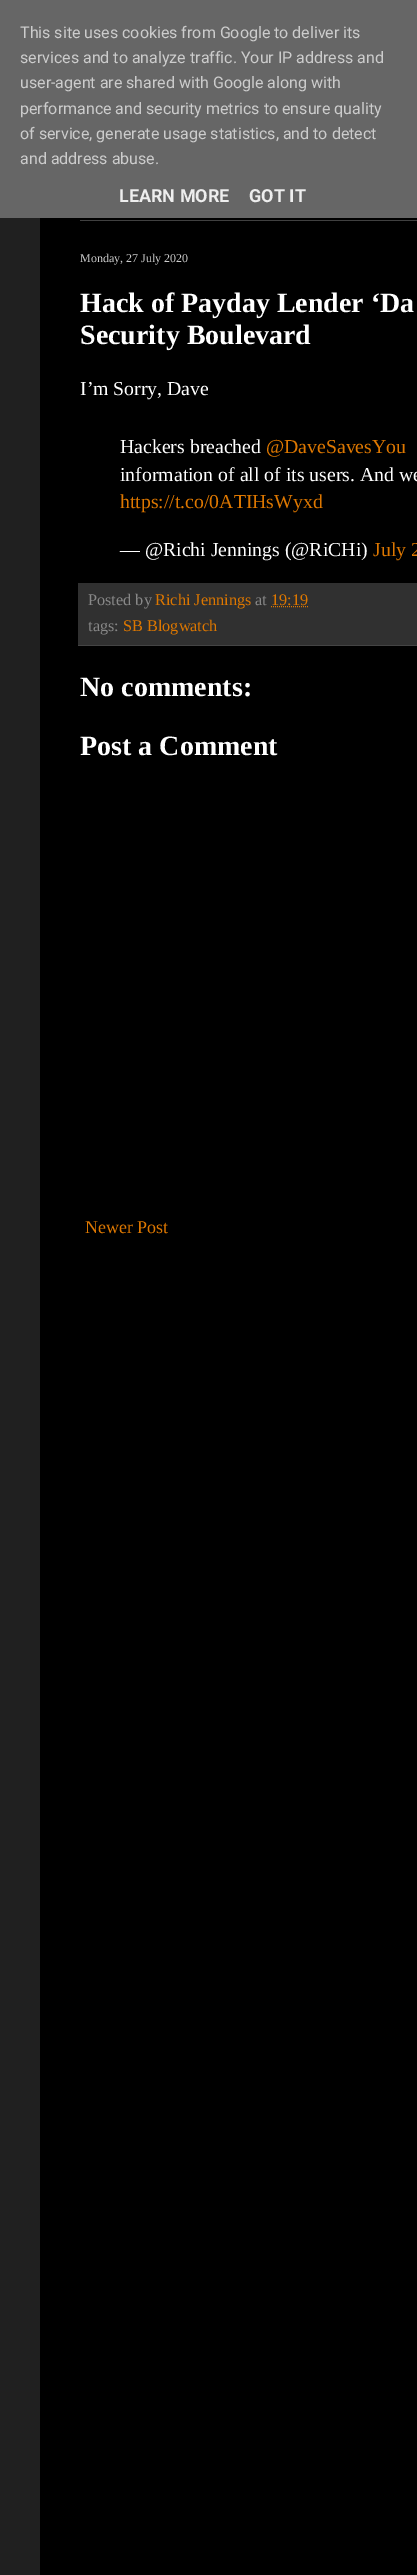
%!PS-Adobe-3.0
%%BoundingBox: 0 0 417 2575
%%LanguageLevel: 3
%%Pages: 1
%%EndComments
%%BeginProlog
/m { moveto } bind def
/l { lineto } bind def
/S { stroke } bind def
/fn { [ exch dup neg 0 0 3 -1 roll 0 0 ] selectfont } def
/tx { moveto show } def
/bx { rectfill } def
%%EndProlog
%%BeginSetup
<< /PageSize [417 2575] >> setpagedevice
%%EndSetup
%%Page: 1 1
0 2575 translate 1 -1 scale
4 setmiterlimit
0.125 setgray
0 0 417 2575 bx
0.4 setgray
0 0 417 218 bx
/Roboto-Regular 16 fn
0.8 setgray
(This site uses cookies from Google to deliver its) 20 38 tx
(services and to analyze traffic. Your IP address and) 20 63 tx
(user-agent are shared with Google along with) 20 88 tx
(performance and security metrics to ensure quality) 20 114 tx
(of service, generate usage statistics, and to detect) 20 139 tx
(and address abuse.) 20 164 tx
/Roboto-Bold 18 fn
0.933 setgray
(LEARN MORE) 119 202 tx
(GOT IT) 249 202 tx
0 setgray
40 218 377 2357 bx
0.251 setgray
80 220 337 1 bx
/LiberationSerif-Regular 12 fn
0.8 setgray
(Monday, 27 July 2020) 80 262 tx
/LiberationSerif-Bold 28 fn
1 setgray
(Hack of Payday Lender ‘Da) 80 312 tx
(Security Boulevard) 80 344 tx
/LiberationSerif-Regular 19.75 fn
(I’m Sorry, Dave) 80 395 tx
(Hackers breached) 120 453 tx
0.867 0.467 0 setrgbcolor
(@DaveSavesYou) 266 453 tx
1 setgray
(information of all of its users. And we) 120 481 tx
0.867 0.467 0 setrgbcolor
(https://t.co/0ATIHsWyxd) 120 508 tx
1 setgray
(— @Richi Jennings \(@RiCHi\)) 120 556 tx
0.867 0.467 0 setrgbcolor
(July 2) 373 556 tx
0.188 setgray
78 583 339 62 bx
0.267 setgray
78 645 339 1 bx
/LiberationSerif-Regular 16.25 fn
0.533 setgray
(Posted by) 88 605 tx
0.867 0.467 0 setrgbcolor
(Richi Jennings) 155 605 tx
0.533 setgray
(at) 255 605 tx
0.867 0.467 0 setrgbcolor
(19:19) 271 605 tx
[1 1] 0 setdash
271 606.5 m 308 606.5 l S
0.533 setgray
(tags:) 88 631 tx
0.867 0.467 0 setrgbcolor
(SB Blogwatch) 123 631 tx
/LiberationSerif-Bold 28 fn
1 setgray
(No comments:) 80 696 tx
(Post a Comment) 80 755 tx
/LiberationSerif-Regular 18 fn
0.867 0.467 0 setrgbcolor
(Newer Post) 85 1233 tx
showpage
%%EOF
